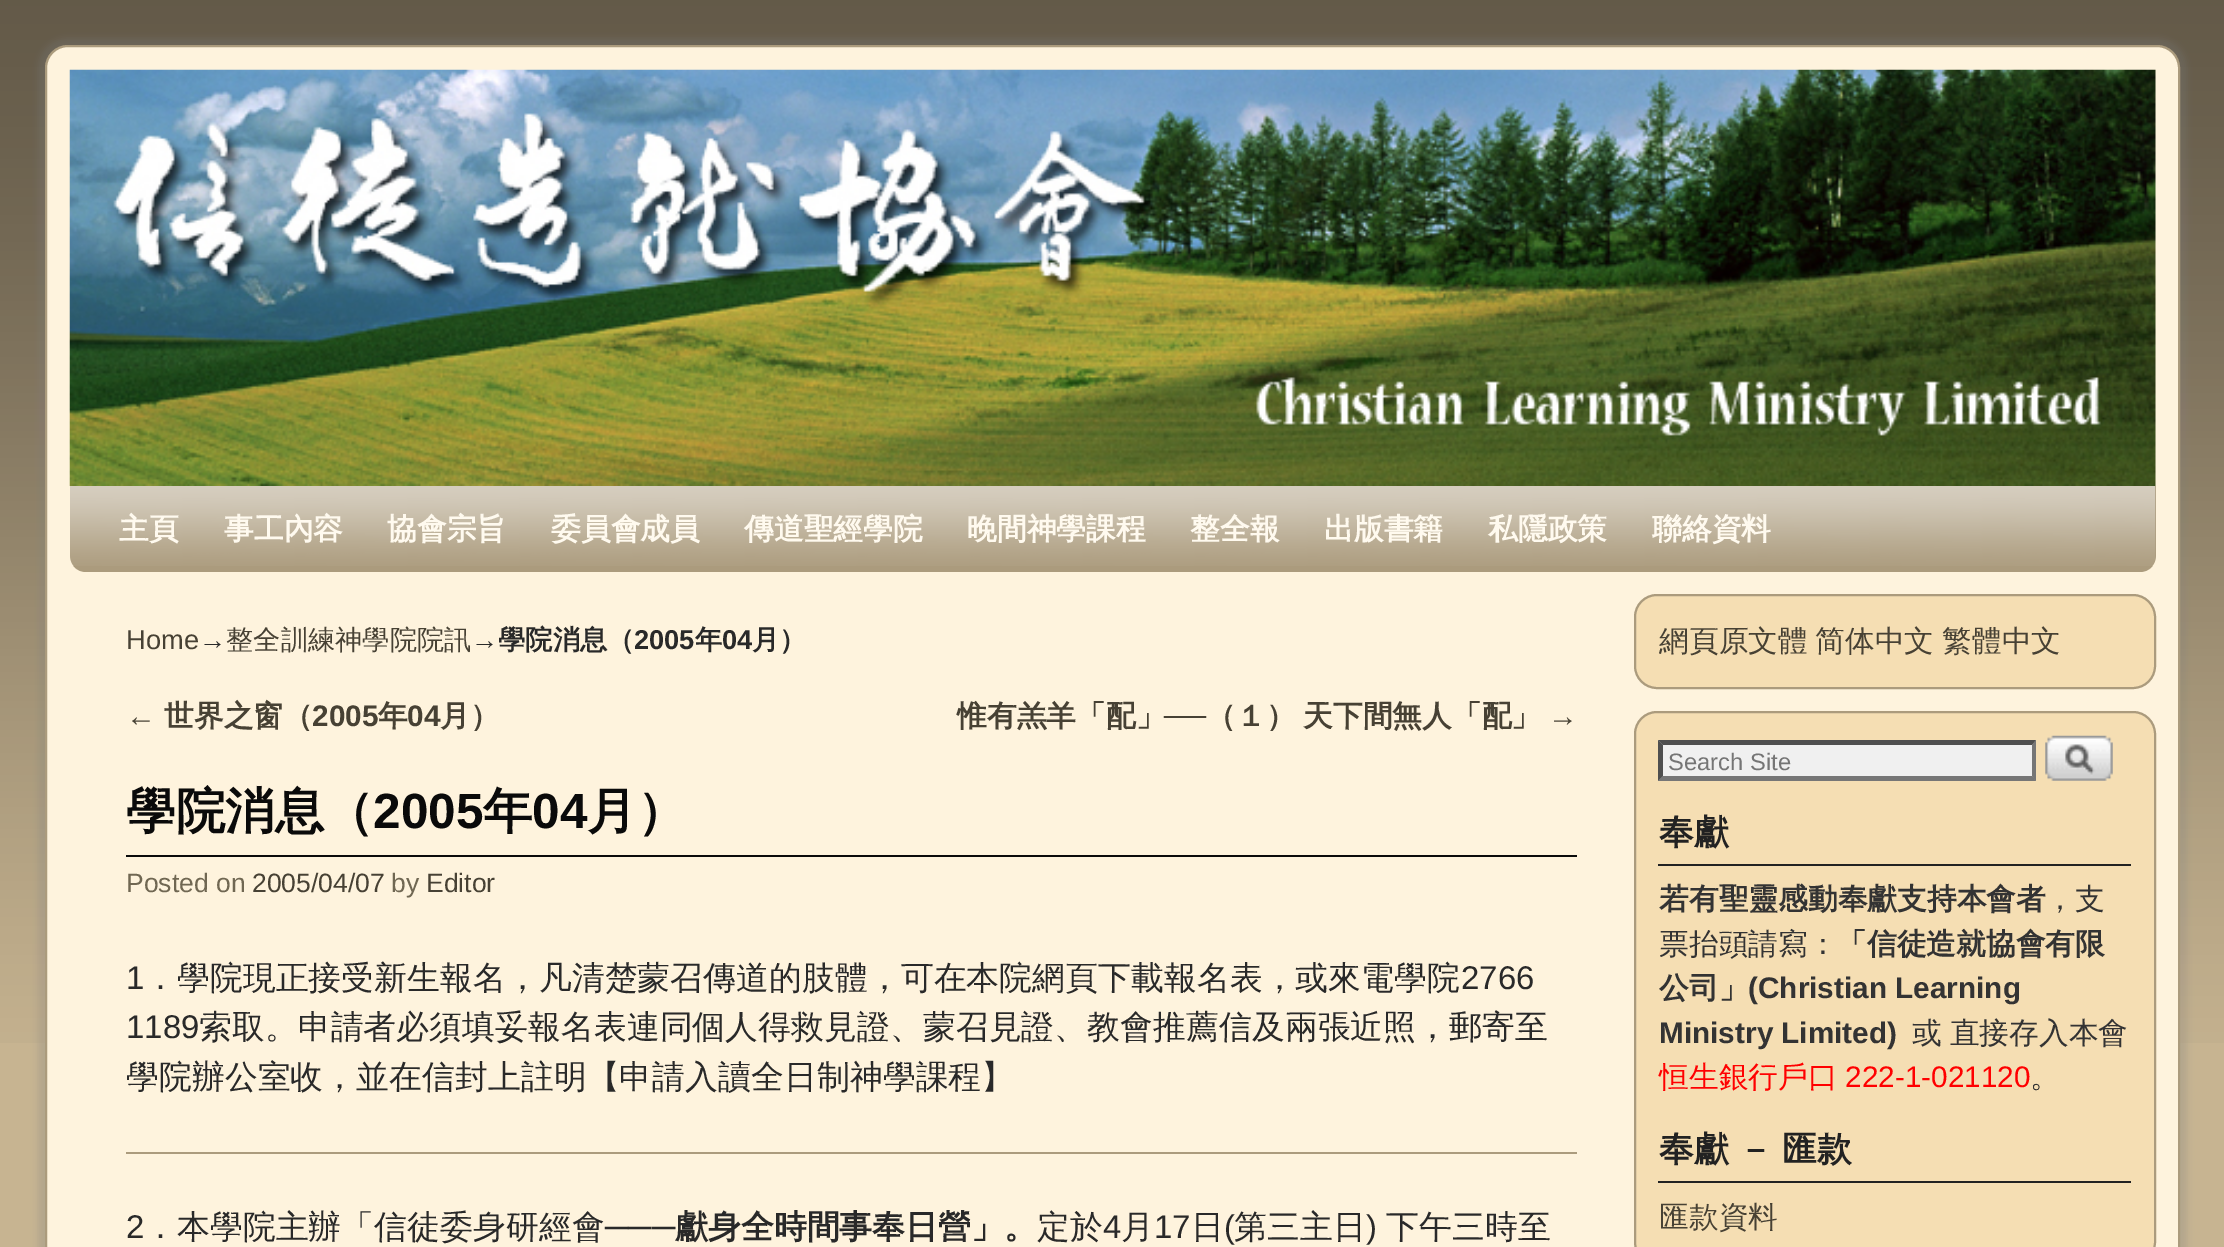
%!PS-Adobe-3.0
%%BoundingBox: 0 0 2224 1247
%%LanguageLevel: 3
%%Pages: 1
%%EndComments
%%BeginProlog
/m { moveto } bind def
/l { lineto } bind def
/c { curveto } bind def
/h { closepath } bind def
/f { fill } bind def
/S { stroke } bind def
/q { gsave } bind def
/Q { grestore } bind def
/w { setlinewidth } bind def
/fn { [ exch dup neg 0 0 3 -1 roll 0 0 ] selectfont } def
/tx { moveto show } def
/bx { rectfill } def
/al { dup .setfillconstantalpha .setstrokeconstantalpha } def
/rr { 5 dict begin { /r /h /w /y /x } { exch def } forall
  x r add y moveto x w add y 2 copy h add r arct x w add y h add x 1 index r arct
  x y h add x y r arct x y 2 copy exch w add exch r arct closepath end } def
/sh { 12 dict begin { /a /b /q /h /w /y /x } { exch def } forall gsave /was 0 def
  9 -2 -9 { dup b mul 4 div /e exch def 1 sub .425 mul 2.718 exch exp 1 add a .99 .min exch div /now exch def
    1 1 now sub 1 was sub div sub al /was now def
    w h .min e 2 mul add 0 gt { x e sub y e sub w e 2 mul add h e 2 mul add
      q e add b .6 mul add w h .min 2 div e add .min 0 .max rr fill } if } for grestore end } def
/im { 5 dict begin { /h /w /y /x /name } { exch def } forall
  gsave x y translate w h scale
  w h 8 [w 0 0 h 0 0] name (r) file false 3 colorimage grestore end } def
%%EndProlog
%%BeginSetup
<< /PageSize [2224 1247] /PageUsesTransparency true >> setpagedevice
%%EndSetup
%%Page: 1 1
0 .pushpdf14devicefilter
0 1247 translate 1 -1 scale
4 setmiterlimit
0.78 0.706 0.569 setrgbcolor
0 0 2224 1247 bx
(image0.raw) 0 0 2224 1043 im
0.498 setgray
38 38 2149 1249 29 3.5 0.25 sh
0.996 0.953 0.867 setrgbcolor
46 46 2133 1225 22 rr q f Q
0.671 0.608 0.49 setrgbcolor
2 w
S
(image1.raw) 69 69 2087 417 im
70 486 m 2156 486 l 2156 556 l 2156 565 2149 572 2140 572 c 86 572 l 77 572 70 565 70 556 c h f
(image2.raw) 70 486 2086 80 im
/WenQuanYiZenHei-Bold 29.75 fn
1 0.98 0.937 setrgbcolor
(主頁) 119 539 tx
(事工內容) 224 539 tx
(協會宗旨) 387 539 tx
(委員會成員) 551 539 tx
(傳道聖經學院) 744 539 tx
(晚間神學課程) 967 539 tx
(整全報) 1190 539 tx
(出版書籍) 1324 539 tx
(私隱政策) 1488 539 tx
(聯絡資料) 1652 539 tx
/LiberationSans-Regular 27.25 fn
0.278 0.255 0.204 setrgbcolor
(Home) 126 649 tx
0.161 setgray
(→) 199 649 tx
/WenQuanYiZenHei-Medium 27.25 fn
0.278 0.255 0.204 setrgbcolor
(整全訓練神學院院訊) 226 649 tx
/LiberationSans-Regular 27.25 fn
0.161 setgray
(→) 471 649 tx
/WenQuanYiZenHei-Bold 27.25 fn
(學院消息（) 498 649 tx
/LiberationSans-Bold 27.25 fn
(2005) 634 649 tx
/WenQuanYiZenHei-Bold 27.25 fn
(年) 695 649 tx
/LiberationSans-Bold 27.25 fn
(04) 722 649 tx
/WenQuanYiZenHei-Bold 27.25 fn
(月）) 752 649 tx
/LiberationSans-Regular 29.75 fn
0.278 0.255 0.204 setrgbcolor
(←) 126 726 tx
/WenQuanYiZenHei-Bold 29.75 fn
(世界之窗（) 164 726 tx
/LiberationSans-Bold 29.75 fn
(2005) 312 726 tx
/WenQuanYiZenHei-Bold 29.75 fn
(年) 378 726 tx
/LiberationSans-Bold 29.75 fn
(04) 407 726 tx
/WenQuanYiZenHei-Bold 29.75 fn
(月）) 440 726 tx
(惟有羔羊「配」) 957 726 tx
/LiberationSans-Bold 29.75 fn
(──) 1164 726 tx
/WenQuanYiZenHei-Bold 29.75 fn
(（１）) 1206 726 tx
(天下間無人「配」) 1303 726 tx
/LiberationSans-Regular 29.75 fn
(→) 1548 726 tx
0.039 setgray
126 855 1451 2 bx
/WenQuanYiZenHei-Bold 49.5 fn
(學院消息（) 126 828 tx
/LiberationSans-Bold 49.5 fn
(2005) 373 828 tx
/WenQuanYiZenHei-Bold 49.5 fn
(年) 483 828 tx
/LiberationSans-Bold 49.5 fn
(04) 532 828 tx
/WenQuanYiZenHei-Bold 49.5 fn
(月）) 587 828 tx
/LiberationSans-Regular 26.5 fn
0.439 0.404 0.322 setrgbcolor
(Posted on) 126 892 tx
0.278 0.255 0.204 setrgbcolor
(2005/04/07) 252 892 tx
0.439 0.404 0.322 setrgbcolor
(by) 391 892 tx
0.278 0.255 0.204 setrgbcolor
(Editor) 426 892 tx
/LiberationSans-Regular 32.9 fn
0.161 setgray
(1) 126 989 tx
/WenQuanYiZenHei-Medium 32.9 fn
(．學院現正接受新生報名，凡清楚蒙召傳道的肢體，可在本院網頁下載報名表，或來電學院) 144 989 tx
/LiberationSans-Regular 32.9 fn
(2766) 1461 989 tx
(1189) 126 1038 tx
/WenQuanYiZenHei-Medium 32.9 fn
(索取。申請者必須填妥報名表連同個人得救見證、蒙召見證、教會推薦信及兩張近照，郵寄至) 199 1038 tx
(學院辦公室收，並在信封上註明【申請入讀全日制神學課程】) 126 1088 tx
0.671 0.608 0.49 setrgbcolor
126 1152 1451 2 bx
/LiberationSans-Regular 32.9 fn
0.161 setgray
(2) 126 1238 tx
/WenQuanYiZenHei-Medium 32.9 fn
(．本學院主辦「信徒委身研經會) 144 1238 tx
/LiberationSans-Regular 32.9 fn
(──) 605 1238 tx
/LiberationSans-Bold 32.9 fn
(─) 652 1238 tx
/WenQuanYiZenHei-Bold 32.9 fn
(獻身全時間事奉日營」。) 675 1238 tx
/WenQuanYiZenHei-Medium 32.9 fn
(定於) 1037 1238 tx
/LiberationSans-Regular 32.9 fn
(4) 1103 1238 tx
/WenQuanYiZenHei-Medium 32.9 fn
(月) 1121 1238 tx
/LiberationSans-Regular 32.9 fn
(17) 1154 1238 tx
/WenQuanYiZenHei-Medium 32.9 fn
(日) 1191 1238 tx
/LiberationSans-Regular 32.9 fn
(\() 1224 1238 tx
/WenQuanYiZenHei-Medium 32.9 fn
(第三主日) 1234 1238 tx
/LiberationSans-Regular 32.9 fn
(\)) 1366 1238 tx
/WenQuanYiZenHei-Medium 32.9 fn
(下午三時至) 1386 1238 tx
0.961 0.871 0.702 setrgbcolor
1635 595 520 93 22 rr q f Q
0.671 0.608 0.49 setrgbcolor
S
/WenQuanYiZenHei-Medium 29.75 fn
0.278 0.255 0.204 setrgbcolor
(網頁原文體) 1659 651 tx
(简体中文) 1815 651 tx
(繁體中文) 1942 651 tx
0.961 0.871 0.702 setrgbcolor
1635 712 520 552 22 rr q f Q
0.671 0.608 0.49 setrgbcolor
S
0.941 setgray
1658 740 378 41 bx
0.31 setgray
1658 740 m 2036 740 l 2032 745 l 1663 745 l h f
0.463 setgray
2036 740 m 2036 781 l 2032 776 l 2032 745 l h f
2036 781 m 1658 781 l 1663 776 l 2032 776 l h f
0.31 setgray
1658 781 m 1658 740 l 1663 745 l 1663 776 l h f
/LiberationSans-Regular 23.75 fn
0.459 setgray
(Search Site) 1668 770 tx
(image3.raw) 2045 735 68 46 im
0.133 setgray
1658 864 473 2 bx
/WenQuanYiZenHei-Bold 34.75 fn
(奉獻) 1659 844 tx
/WenQuanYiZenHei-Bold 29.75 fn
0.2 setgray
(若有聖靈感動奉獻支持本會者) 1659 909 tx
/WenQuanYiZenHei-Medium 29.75 fn
(，支) 2045 909 tx
(票抬頭請寫：) 1659 954 tx
/WenQuanYiZenHei-Bold 29.75 fn
(「信徒造就協會有限) 1837 954 tx
(公司」) 1659 998 tx
/LiberationSans-Bold 29.75 fn
(\(Christian Learning) 1748 998 tx
(Ministry Limited\)) 1659 1043 tx
/WenQuanYiZenHei-Medium 29.75 fn
1912 1043 m -1 0 32 (或 直接存入本會) widthshow
1 0 0 setrgbcolor
(恒生銀行戶口) 1659 1087 tx
/LiberationSans-Regular 29.75 fn
(222-1-021120) 1845 1087 tx
/WenQuanYiZenHei-Medium 29.75 fn
0.2 setgray
(。) 2030 1087 tx
0.133 setgray
1658 1181 473 2 bx
/WenQuanYiZenHei-Bold 34.75 fn
1659 1161 m -1 0 32 (奉獻 － 匯款) widthshow
/WenQuanYiZenHei-Medium 29.75 fn
0.278 0.255 0.204 setrgbcolor
(匯款資料) 1659 1227 tx
.poppdf14devicefilter showpage
%%EOF
